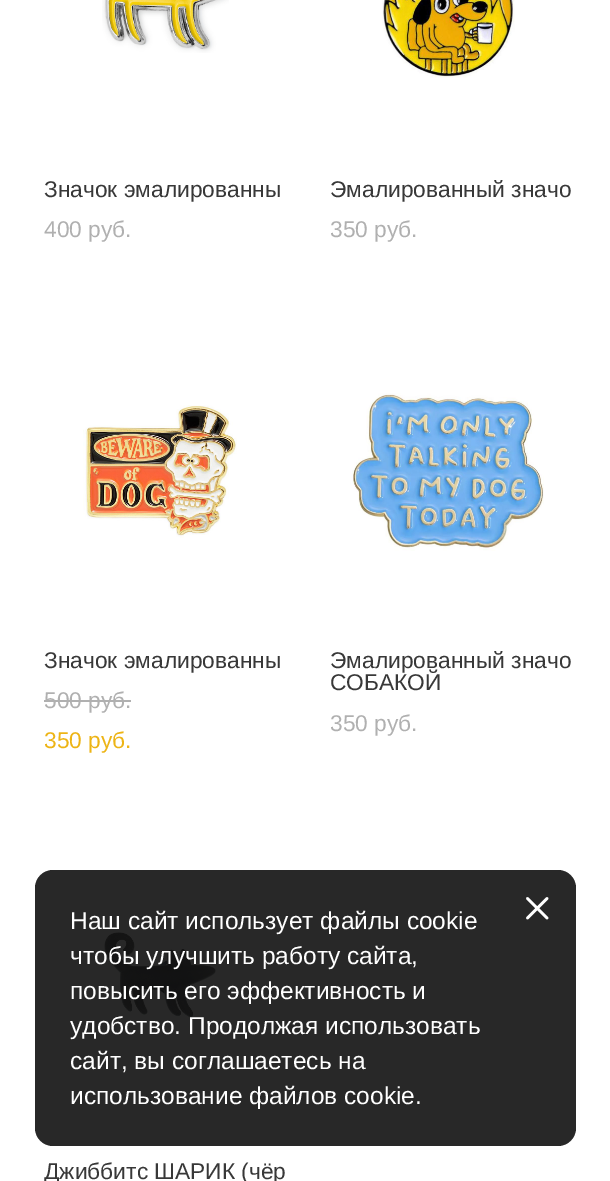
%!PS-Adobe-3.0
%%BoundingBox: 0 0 610 1181
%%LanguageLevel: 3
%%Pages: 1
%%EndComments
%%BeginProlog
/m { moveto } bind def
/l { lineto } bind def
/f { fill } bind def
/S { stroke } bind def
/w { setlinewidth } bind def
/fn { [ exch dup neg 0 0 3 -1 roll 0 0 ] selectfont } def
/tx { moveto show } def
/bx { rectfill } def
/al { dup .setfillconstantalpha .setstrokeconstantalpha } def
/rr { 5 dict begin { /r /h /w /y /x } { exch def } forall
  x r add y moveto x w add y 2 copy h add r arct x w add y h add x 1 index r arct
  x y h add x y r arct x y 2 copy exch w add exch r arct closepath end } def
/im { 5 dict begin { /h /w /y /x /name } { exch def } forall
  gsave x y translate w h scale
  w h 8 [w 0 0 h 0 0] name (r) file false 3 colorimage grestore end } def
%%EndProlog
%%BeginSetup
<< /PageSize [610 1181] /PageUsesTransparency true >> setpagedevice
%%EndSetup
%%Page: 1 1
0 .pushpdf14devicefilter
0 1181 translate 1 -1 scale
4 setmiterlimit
1 setgray
0 0 610 1181 bx
(image0.raw) 102 0 127 53 im
/LiberationSans-Regular 22.75 fn
0.22 setgray
(Значок эмалированны) 44 197 tx
0.69 setgray
(400 pуб.) 44 237 tx
(image1.raw) 382 0 133 78 im
0.22 setgray
(Эмалированный значо) 330 197 tx
0.69 setgray
(350 pуб.) 330 237 tx
(image2.raw) 83 405 154 133 im
0.22 setgray
(Значок эмалированны) 44 668 tx
0.69 setgray
(500 pуб.) 44 708 tx
44 700 87 2 bx
0.929 0.706 0.082 setrgbcolor
(350 pуб.) 44 748 tx
(image3.raw) 350 393 194 158 im
0.22 setgray
(Эмалированный значо) 330 668 tx
(СОБАКОЙ) 330 690 tx
0.69 setgray
(350 pуб.) 330 731 tx
(image4.raw) 104 932 112 86 im
0.22 setgray
(Джиббитс ШАРИК \(чёр) 44 1179 tx
0.9 al
0.067 setgray
35 870 541 276 18 rr f
/LiberationSans-Regular 24.5 fn
1 al
1 setgray
(Наш сайт использует файлы cookie) 70 929 tx
(чтобы улучшить работу сайта,) 70 964 tx
(повысить его эффективность и) 70 999 tx
(удобство. Продолжая использовать) 70 1034 tx
(сайт, вы соглашаетесь на) 70 1069 tx
(использование файлов cookie.) 70 1104 tx
2.6 w
1 setlinecap
1 setlinejoin
547 898.5 m 527.5 918 l 527.5 898.5 m 547 918 l S
.poppdf14devicefilter showpage
%%EOF
